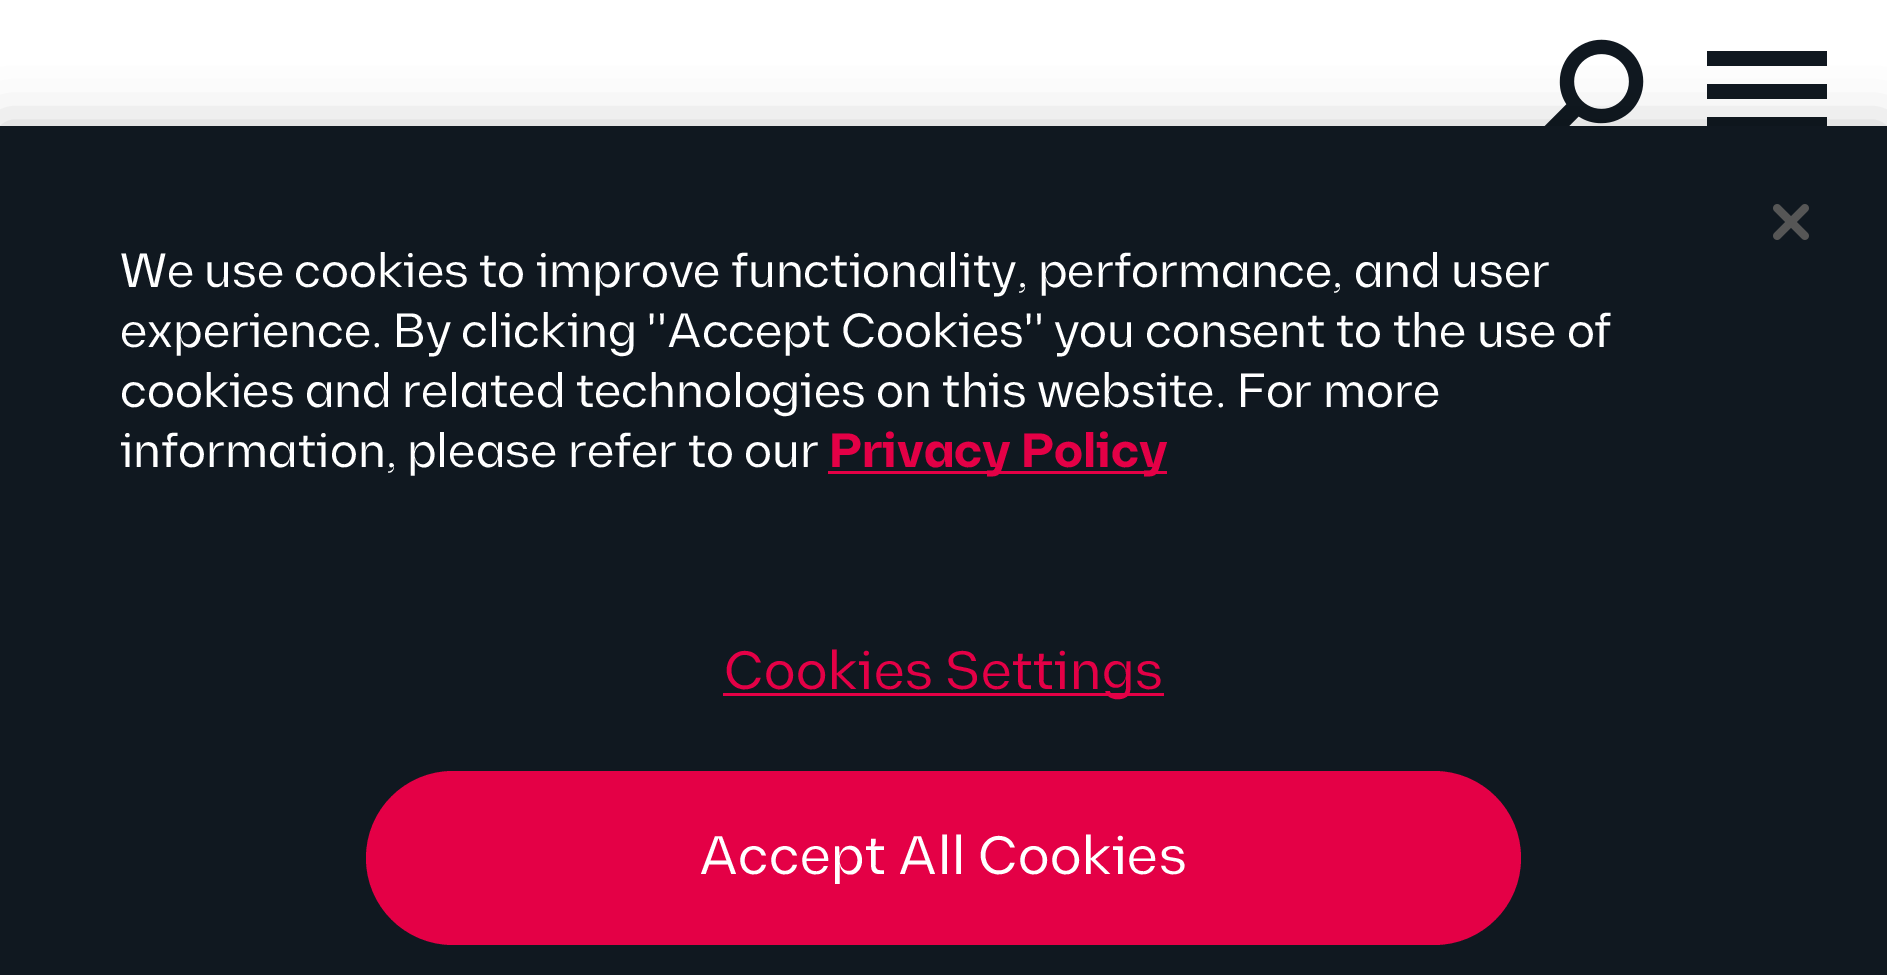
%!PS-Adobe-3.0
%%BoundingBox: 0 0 1887 975
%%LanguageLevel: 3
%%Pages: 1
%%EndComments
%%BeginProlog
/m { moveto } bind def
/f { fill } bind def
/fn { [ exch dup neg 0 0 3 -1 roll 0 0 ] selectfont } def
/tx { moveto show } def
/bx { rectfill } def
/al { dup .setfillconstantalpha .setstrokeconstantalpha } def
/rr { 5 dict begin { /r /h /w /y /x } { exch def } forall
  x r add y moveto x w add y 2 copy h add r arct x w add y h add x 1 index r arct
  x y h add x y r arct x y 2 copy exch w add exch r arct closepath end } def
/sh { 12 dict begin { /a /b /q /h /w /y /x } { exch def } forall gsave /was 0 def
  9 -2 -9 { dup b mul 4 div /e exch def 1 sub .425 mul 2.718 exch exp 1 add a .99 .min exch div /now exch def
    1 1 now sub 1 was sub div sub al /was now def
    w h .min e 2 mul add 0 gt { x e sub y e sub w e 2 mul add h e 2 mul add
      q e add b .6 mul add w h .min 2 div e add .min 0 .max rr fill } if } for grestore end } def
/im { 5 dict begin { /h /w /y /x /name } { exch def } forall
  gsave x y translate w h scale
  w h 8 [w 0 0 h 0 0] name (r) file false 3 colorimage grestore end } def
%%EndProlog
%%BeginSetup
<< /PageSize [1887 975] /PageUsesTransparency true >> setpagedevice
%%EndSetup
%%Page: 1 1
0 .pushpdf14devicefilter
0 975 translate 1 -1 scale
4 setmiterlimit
1 setgray
0 0 1887 975 bx
(image0.raw) 1544 39 100 87 im
0.063 0.094 0.125 setrgbcolor
1707 84 120 15 bx
1707 51 120 15 bx
1707 117 120 9 bx
0 setgray
0 126 1887 849 0 27 0.2 sh
0.063 0.094 0.125 setrgbcolor
0 126 1887 849 bx
(image1.raw) 1773 204 36 36 im
/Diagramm-Regular 48 fn
1 setgray
(We use cookies to improve functionality, performance, and user) 120 287 tx
(experience. By clicking "Accept Cookies" you consent to the use of) 120 347 tx
(cookies and related technologies on this website. For more) 120 407 tx
(information, please refer to our) 120 467 tx
0.894 0 0.275 setrgbcolor
828 471 339 3 bx
/Diagramm-Bold 48 fn
(Privacy Policy) 829 467 tx
723 693 441 3 bx
/Diagramm-Regular 54 fn
724 689 m 0.5 0 (Cookies Settings) ashow
366 771 1155 174 87 rr f
1 setgray
699 874 m 0.5 0 (Accept All Cookies) ashow
.poppdf14devicefilter showpage
%%EOF
